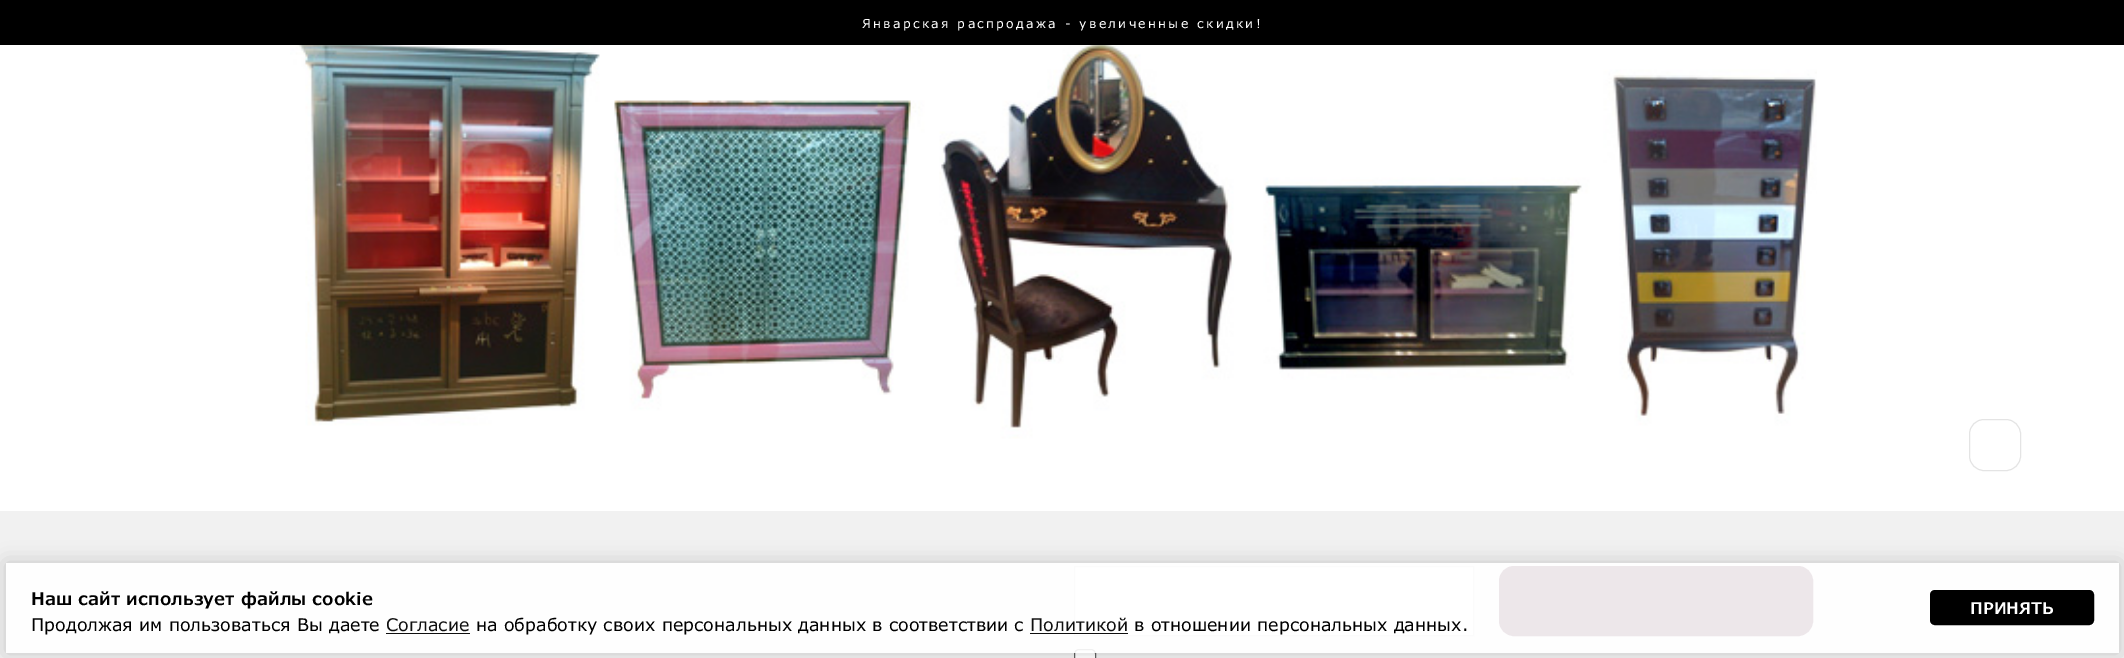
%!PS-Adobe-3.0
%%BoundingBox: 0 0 2124 658
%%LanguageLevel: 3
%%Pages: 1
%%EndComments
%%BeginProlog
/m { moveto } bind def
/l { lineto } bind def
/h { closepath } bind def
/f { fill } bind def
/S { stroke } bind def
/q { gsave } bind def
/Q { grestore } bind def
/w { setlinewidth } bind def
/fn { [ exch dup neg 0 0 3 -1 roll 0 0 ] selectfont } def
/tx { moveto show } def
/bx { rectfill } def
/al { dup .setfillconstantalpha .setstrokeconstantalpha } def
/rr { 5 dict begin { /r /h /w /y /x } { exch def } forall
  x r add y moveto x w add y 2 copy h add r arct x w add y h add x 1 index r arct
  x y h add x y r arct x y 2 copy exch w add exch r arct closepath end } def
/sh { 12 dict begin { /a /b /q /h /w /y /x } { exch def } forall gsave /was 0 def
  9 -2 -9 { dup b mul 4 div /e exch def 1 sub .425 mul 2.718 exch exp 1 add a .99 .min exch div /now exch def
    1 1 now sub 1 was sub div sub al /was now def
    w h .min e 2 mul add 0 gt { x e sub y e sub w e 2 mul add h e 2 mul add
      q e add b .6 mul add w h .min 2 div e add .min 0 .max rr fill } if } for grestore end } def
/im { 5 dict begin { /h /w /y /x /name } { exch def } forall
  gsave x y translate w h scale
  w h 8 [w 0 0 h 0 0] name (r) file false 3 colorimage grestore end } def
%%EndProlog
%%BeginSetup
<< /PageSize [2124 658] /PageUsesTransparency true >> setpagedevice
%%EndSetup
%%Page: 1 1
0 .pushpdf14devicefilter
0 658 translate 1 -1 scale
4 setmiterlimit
1 setgray
0 0 2124 658 bx
0 setgray
0 0 2124 45 bx
/Verdana-Regular 12.5 fn
1 setgray
862 28 m 2.25 0 (Январская распродажа - увеличенные скидки!) ashow
(image0.raw) 290 45 1527 394 im
0.894 setgray
1969.5 419.5 51 51 14.5 rr S
0.945 setgray
0 511 2124 147 bx
1 setgray
1074.5 566.5 m 1473.5 566.5 l 1473.5 635.5 l 1074.5 635.5 l h q f Q
0.851 setgray
S
0.29 0.024 0.165 setrgbcolor
1500.5 567.5 311 67 13.5 rr q f Q
3 w
S
1 setgray
1074.5 649.5 21 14 4.5 rr q f Q
0.388 setgray
1 w
S
q
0 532 m 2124 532 l 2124 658 l 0 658 l h 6 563 m 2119 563 l 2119 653 l 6 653 l h eoclip newpath
0 setgray
6 563 2113 90 0 10 0.18 sh
Q
0.9 al
1 setgray
6 563 2113 90 bx
/Verdana-SemiBold 17.5 fn
1 al
0 setgray
(Наш сайт использует файлы cookie) 31 605 tx
/Verdana-Regular 17.5 fn
(Продолжая им пользоваться Вы даете) 31 631 tx
0.059 setgray
(Согласие) 386 631 tx
386 633 84 1 bx
0 setgray
(на обработку своих персональных данных в соответствии с) 476 631 tx
0.059 setgray
(Политикой) 1030 631 tx
1030 633 98 1 bx
0 setgray
(в отношении персональных данных.) 1134 631 tx
1931.5 591.5 161 32 3.5 rr q f Q
3 w
S
/Verdana-SemiBold 16.25 fn
1 setgray
(ПРИНЯТЬ) 1970 614 tx
.poppdf14devicefilter showpage
%%EOF
